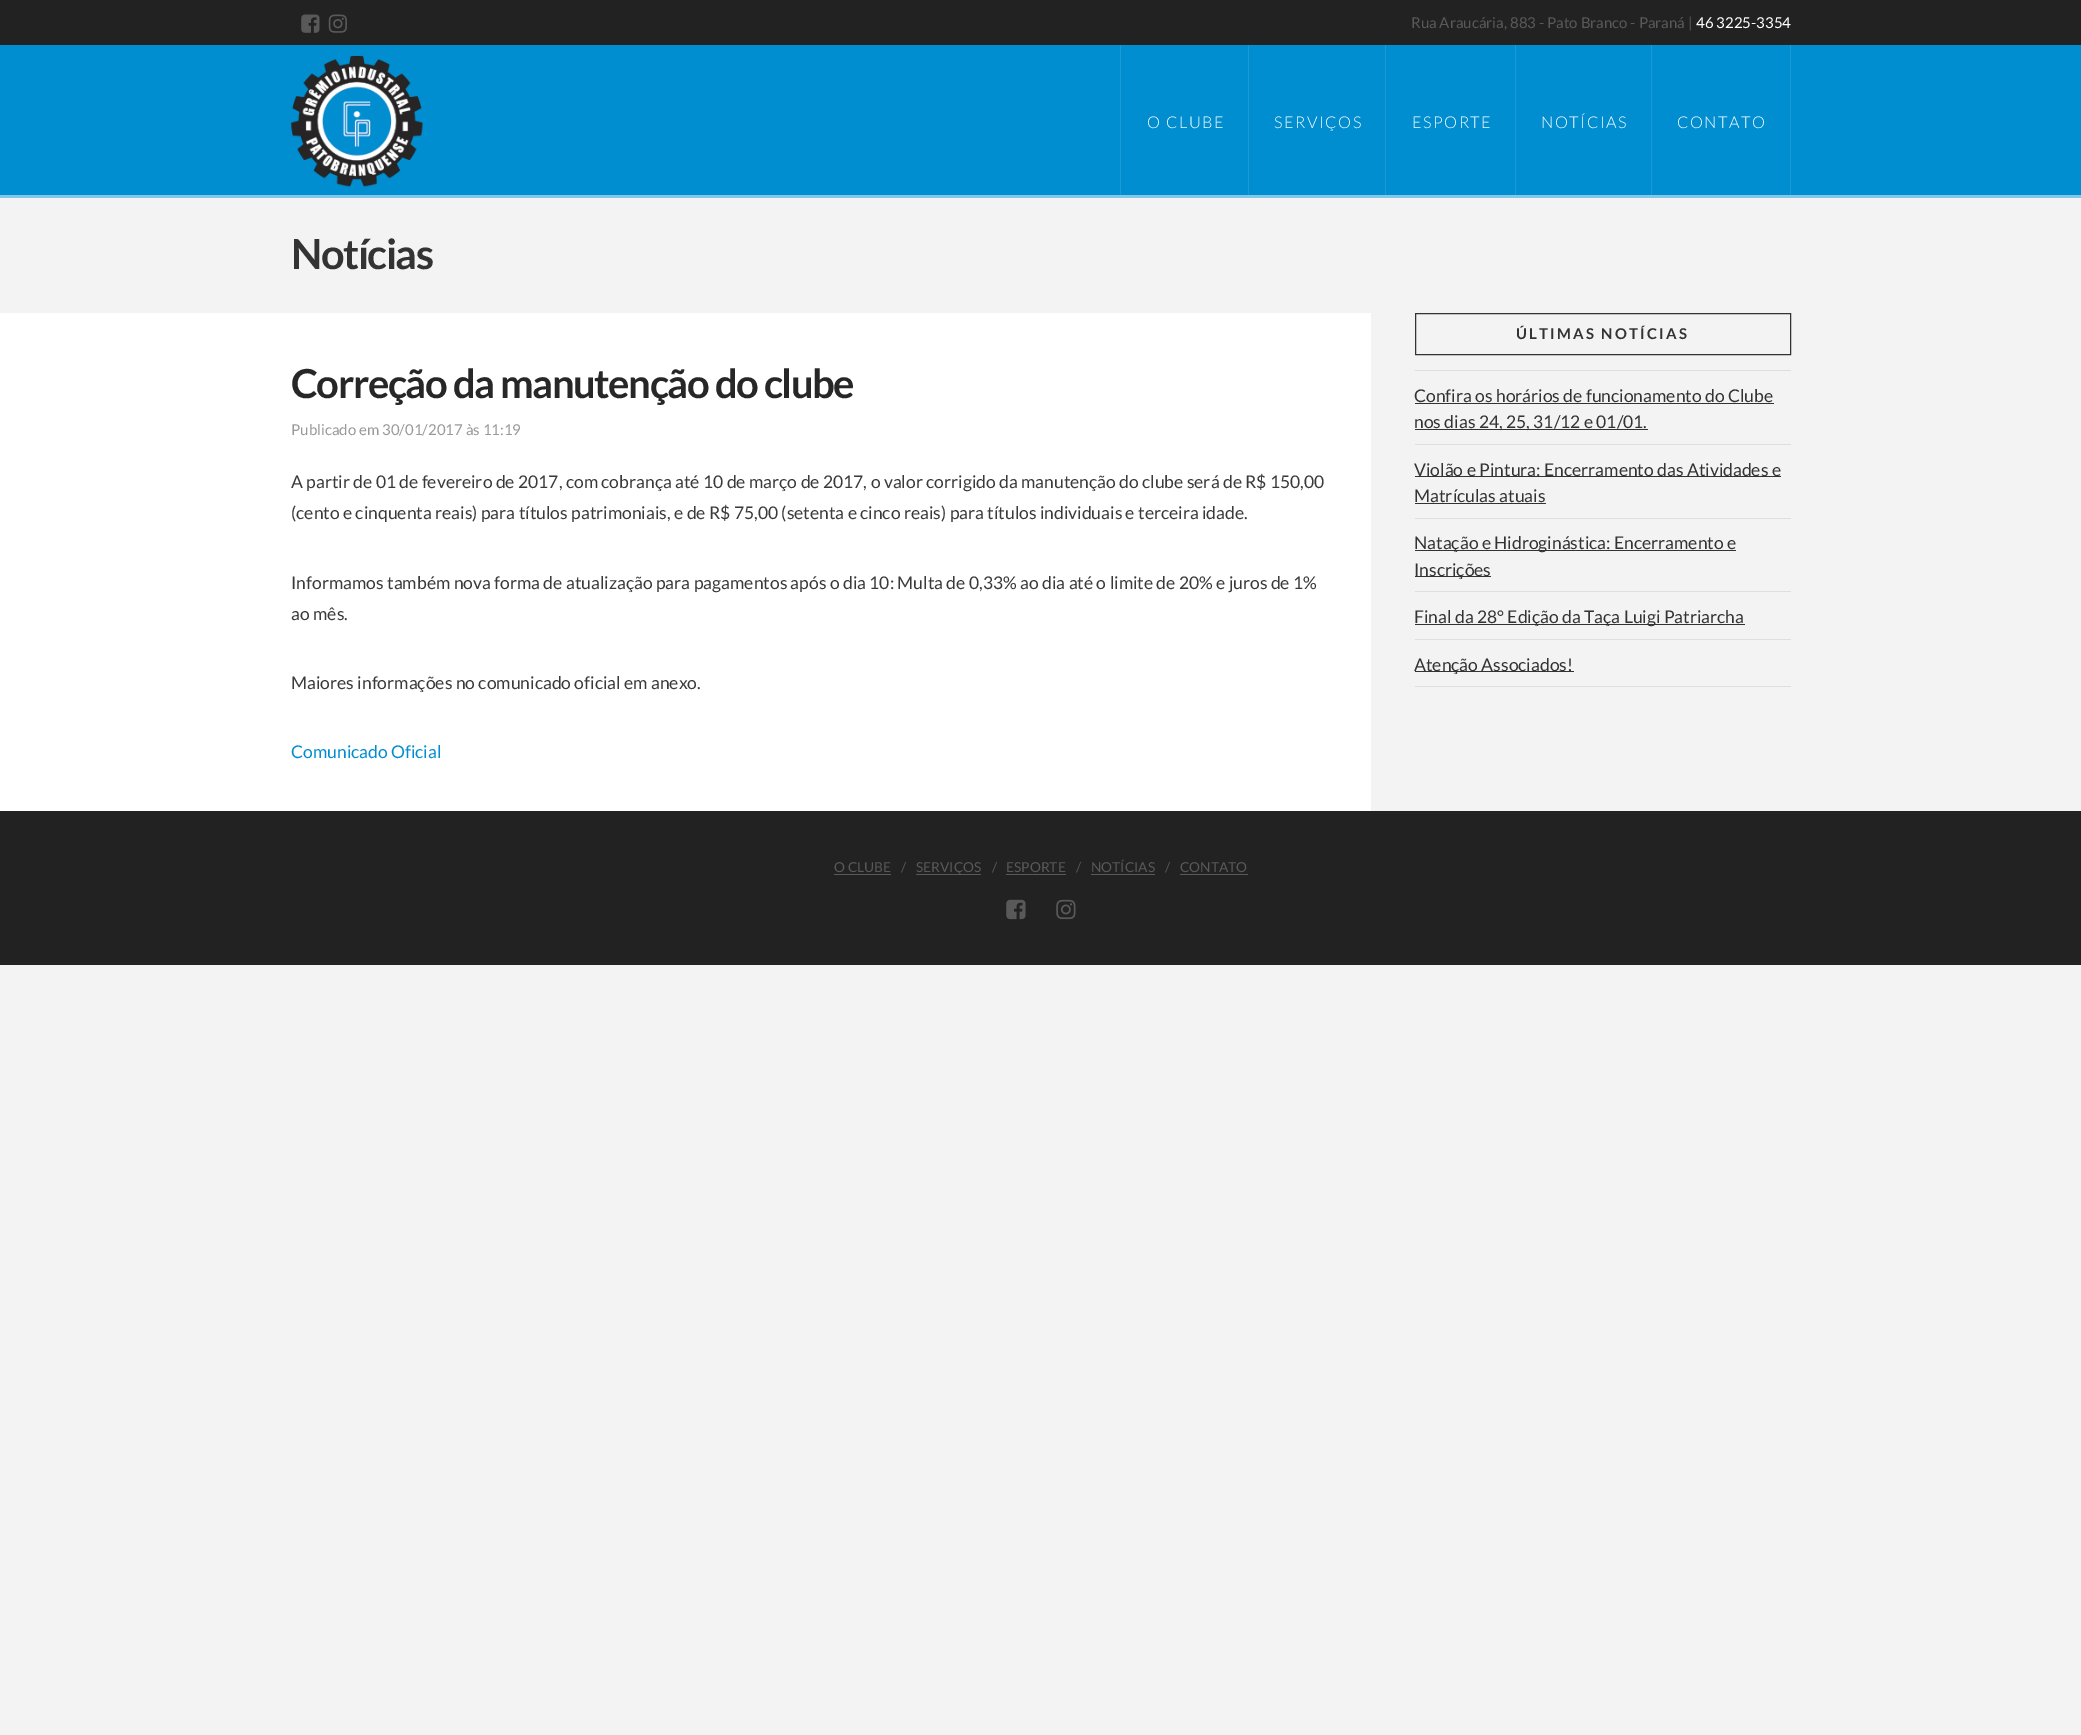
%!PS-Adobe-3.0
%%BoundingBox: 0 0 2081 1735
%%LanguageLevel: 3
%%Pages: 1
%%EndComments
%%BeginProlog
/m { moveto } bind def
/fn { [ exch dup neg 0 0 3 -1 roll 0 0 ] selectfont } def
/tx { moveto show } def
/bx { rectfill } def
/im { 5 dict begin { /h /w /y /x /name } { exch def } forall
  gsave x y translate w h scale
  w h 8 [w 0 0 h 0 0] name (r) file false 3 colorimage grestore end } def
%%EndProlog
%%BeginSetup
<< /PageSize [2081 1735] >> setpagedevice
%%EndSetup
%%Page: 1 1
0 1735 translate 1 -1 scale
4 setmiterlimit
0.953 setgray
0 0 2081 1735 bx
0.133 setgray
0 0 2081 45 bx
(image0.raw) 301 14 19 19 im
(image1.raw) 328 14 19 19 im
/Lato-Regular 15 fn
0.349 setgray
(Rua Araucária, 883 - Pato Branco - Paraná |) 1411 28 tx
1 setgray
(46 3225-3354) 1696 28 tx
0 0.557 0.82 setrgbcolor
0 45 2081 150 bx
0.502 0.78 0.91 setrgbcolor
0 195 2081 3 bx
(image2.raw) 291 55 132 132 im
0.102 0.6 0.839 setrgbcolor
1248 45 1 150 bx
1120 45 1 150 bx
/Lato-Light 16.25 fn
1 setgray
1147 128 m 1.5 0 (O CLUBE) ashow
0.102 0.6 0.839 setrgbcolor
1385 45 1 150 bx
1 setgray
1274 128 m 1.5 0 (SERVIÇOS) ashow
0.102 0.6 0.839 setrgbcolor
1515 45 1 150 bx
1 setgray
1412 128 m 1.5 0 (ESPORTE) ashow
0.102 0.6 0.839 setrgbcolor
1651 45 1 150 bx
1 setgray
1541 128 m 1.5 0 (NOTÍCIAS) ashow
0.102 0.6 0.839 setrgbcolor
1790 45 1 150 bx
1 setgray
1677 128 m 1.5 0 (CONTATO) ashow
/Lato-Bold 41.5 fn
0.2 setgray
291 269 m -1.5 0 (Notícias) ashow
1 setgray
0 313 1371 498 bx
/Lato-Bold 40 fn
0.153 setgray
291 398 m -1.4 0 (Correção da manutenção do clube) ashow
/Lato-Regular 15 fn
0.6 setgray
(Publicado em 30/01/2017 às 11:19) 291 435 tx
/Lato-Regular 17.5 fn
0.235 0.224 0.224 setrgbcolor
(A partir de 01 de fevereiro de 2017, com cobrança até 10 de março de 2017, o valor corrigido da manutenção do clube será de R$ 150,00) 291 488 tx
(\(cento e cinquenta reais\) para títulos patrimoniais, e de R$ 75,00 \(setenta e cinco reais\) para títulos individuais e terceira idade.) 291 519 tx
(Informamos também nova forma de atualização para pagamentos após o dia 10: Multa de 0,33% ao dia até o limite de 20% e juros de 1%) 291 589 tx
(ao mês.) 291 620 tx
(Maiores informações no comunicado oficial em anexo.) 291 689 tx
0 0.557 0.82 setrgbcolor
(Comunicado Oficial) 291 758 tx
0.2 setgray
1415.5 313.5 375 41 rectstroke
/Lato-Bold 14.9 fn
1516 339 m 2.25 0 (ÚLTIMAS NOTÍCIAS) ashow
0.871 setgray
1415 370 376 1 bx
/Lato-Regular 17.5 fn
0.2 setgray
(Confira os horários de funcionamento do Clube) 1414 402 tx
1415 403 359 1 bx
1415 429 233 1 bx
(nos dias 24, 25, 31/12 e 01/01.) 1414 428 tx
0.871 setgray
1415 444 376 1 bx
0.2 setgray
1415 476 366 1 bx
(Violão e Pintura: Encerramento das Atividades e) 1414 476 tx
(Matrículas atuais) 1414 502 tx
1415 503 131 1 bx
0.871 setgray
1415 518 376 1 bx
0.2 setgray
1415 550 321 1 bx
(Natação e Hidroginástica: Encerramento e) 1414 549 tx
1415 576 76 1 bx
(Inscrições) 1414 576 tx
0.871 setgray
1415 591 376 1 bx
0.2 setgray
1415 624 330 1 bx
(Final da 28° Edição da Taça Luigi Patriarcha) 1414 623 tx
0.871 setgray
1415 639 376 1 bx
1415 686 376 1 bx
0.2 setgray
1415 671 159 1 bx
(Atenção Associados!) 1414 671 tx
0.133 setgray
0 811 2081 154 bx
/Lato-Regular 13.75 fn
0.349 setgray
(O CLUBE) 834 872 tx
834 874 57 1 bx
(/) 901 872 tx
916 874 65 1 bx
(SERVIÇOS) 916 872 tx
(/) 992 872 tx
(ESPORTE) 1006 872 tx
1006 874 60 1 bx
(/) 1076 872 tx
(NOTÍCIAS) 1091 872 tx
1091 874 64 1 bx
(/) 1165 872 tx
(CONTATO) 1180 872 tx
1180 874 68 1 bx
(image3.raw) 1006 899 20 21 im
(image4.raw) 1056 899 20 21 im
showpage
%%EOF
